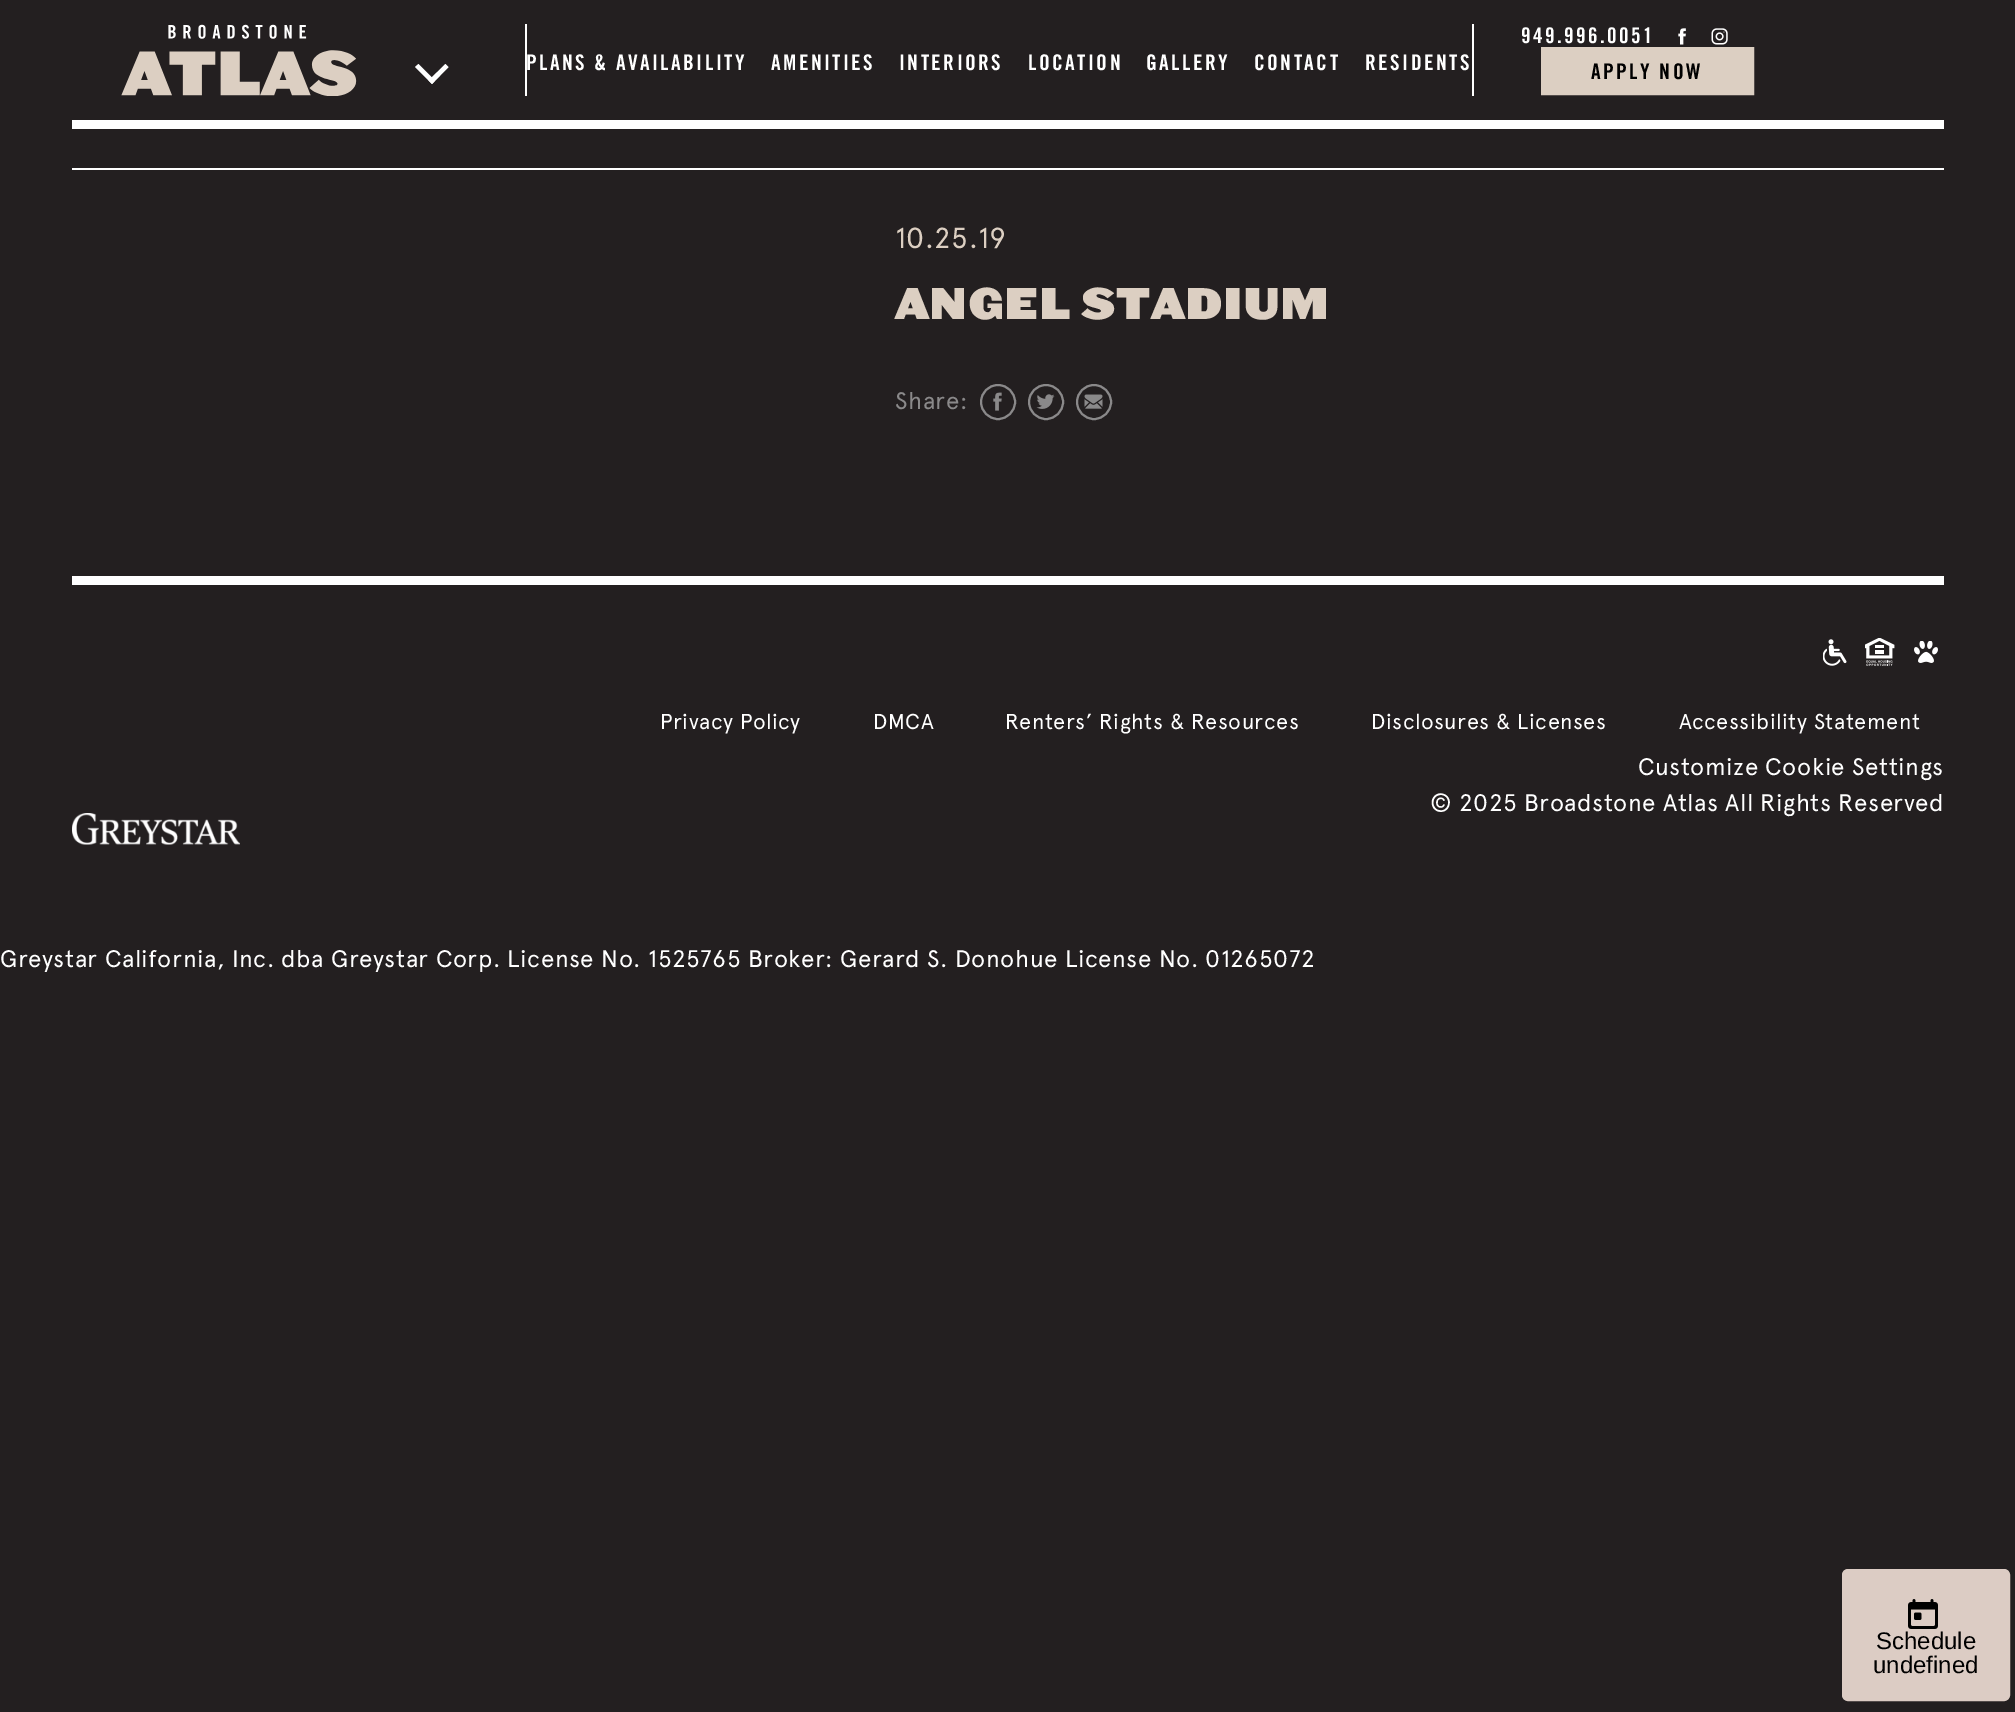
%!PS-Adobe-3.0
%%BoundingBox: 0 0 2015 1712
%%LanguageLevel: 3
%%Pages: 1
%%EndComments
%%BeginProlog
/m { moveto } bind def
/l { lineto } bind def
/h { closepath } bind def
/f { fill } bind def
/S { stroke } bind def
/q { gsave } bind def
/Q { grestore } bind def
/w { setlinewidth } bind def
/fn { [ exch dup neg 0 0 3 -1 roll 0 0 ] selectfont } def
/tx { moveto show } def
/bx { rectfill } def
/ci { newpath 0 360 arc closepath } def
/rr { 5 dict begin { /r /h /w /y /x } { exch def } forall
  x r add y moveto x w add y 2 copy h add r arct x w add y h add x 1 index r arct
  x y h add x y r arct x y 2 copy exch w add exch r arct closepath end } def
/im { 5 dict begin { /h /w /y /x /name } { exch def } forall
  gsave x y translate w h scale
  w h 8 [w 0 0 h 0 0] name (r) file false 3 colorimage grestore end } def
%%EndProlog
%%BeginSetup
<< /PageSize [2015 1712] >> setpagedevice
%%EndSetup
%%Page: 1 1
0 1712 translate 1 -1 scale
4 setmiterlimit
0.137 0.122 0.125 setrgbcolor
0 0 2015 1712 bx
1 setgray
525 24 2 72 bx
(image0.raw) 121 24 236 72 im
445.5 64 m 448.5 67 l 432 84 l 428.5 80.5 l h f
418.5 64 m 435 80.5 l 432 84 l 415 67 l h f
/TradeGothic-Bold 21.6 fn
526 70 m 2.4 0 (PLANS & AVAILABILITY) ashow
771 70 m 2.4 0 (AMENITIES) ashow
899 70 m 2.4 0 (INTERIORS) ashow
1028 70 m 2.4 0 (LOCATION) ashow
1146 70 m 2.4 0 (GALLERY) ashow
1254 70 m 2.4 0 (CONTACT) ashow
1365 70 m 2.4 0 (RESIDENTS) ashow
1472 24 2 72 bx
1521 43 m 2.4 0 (949.996.0051) ashow
(image1.raw) 1678 28 8 17 im
(image2.raw) 1711 28 17 17 im
0.863 0.812 0.761 setrgbcolor
1542.5 48.5 m 1752.5 48.5 l 1752.5 93.5 l 1542.5 93.5 l h q f Q
3 w
S
0 setgray
1591 79 m 2.4 0 (APPLY NOW) ashow
1 setgray
72 120 1872 9 bx
72 168 1872 2 bx
/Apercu-Regular 29 fn
0.863 0.812 0.761 setrgbcolor
895 248 m 0.48 0 (10.25.19) ashow
/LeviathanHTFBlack-Black 42 fn
895 319 m 0.48 0 (ANGEL STADIUM) ashow
/Apercu-Regular 24 fn
0.541 0.537 0.541 setrgbcolor
895 409 m 0.48 0 (Share:) ashow
2 w
998 402 17 ci S
(image3.raw) 993 392 9 19 im
1046 402 17 ci S
(image4.raw) 1036 394 19 15 im
1094 402 17 ci S
(image5.raw) 1084 394 19 15 im
1 setgray
72 576 1872 9 bx
(image6.raw) 1823 639 24 27 im
(image7.raw) 1865 638 30 28 im
(image8.raw) 1914 641 24 22 im
/Apercu-Regular 21.6 fn
660 729 m 0.48 0 (Privacy Policy) ashow
873 729 m 0.48 0 (DMCA) ashow
1005 729 m 0.48 0 (Renters’ Rights & Resources) ashow
1371 729 m 0.48 0 (Disclosures & Licenses) ashow
1679 729 m 0.48 0 (Accessibility Statement) ashow
/Apercu-Regular 24 fn
1638 775 m 0.48 0 (Customize Cookie Settings) ashow
1430 811 m 0.48 0 (© 2025 Broadstone Atlas All Rights Reserved) ashow
(image9.raw) 72 813 168 32 im
0 967 m 0.48 0 (Greystar California, Inc. dba Greystar Corp. License No. 1525765 Broker: Gerard S. Donohue License No. 01265072) ashow
0.863 0.8 0.769 setrgbcolor
1843.5 1570.5 165 129 4.5 rr q f Q
3 w
S
(image10.raw) 1908 1599 30 30 im
/LiberationSans-Regular 24 fn
0 setgray
(Schedule) 1876 1649 tx
(undefined) 1873 1673 tx
showpage
%%EOF
